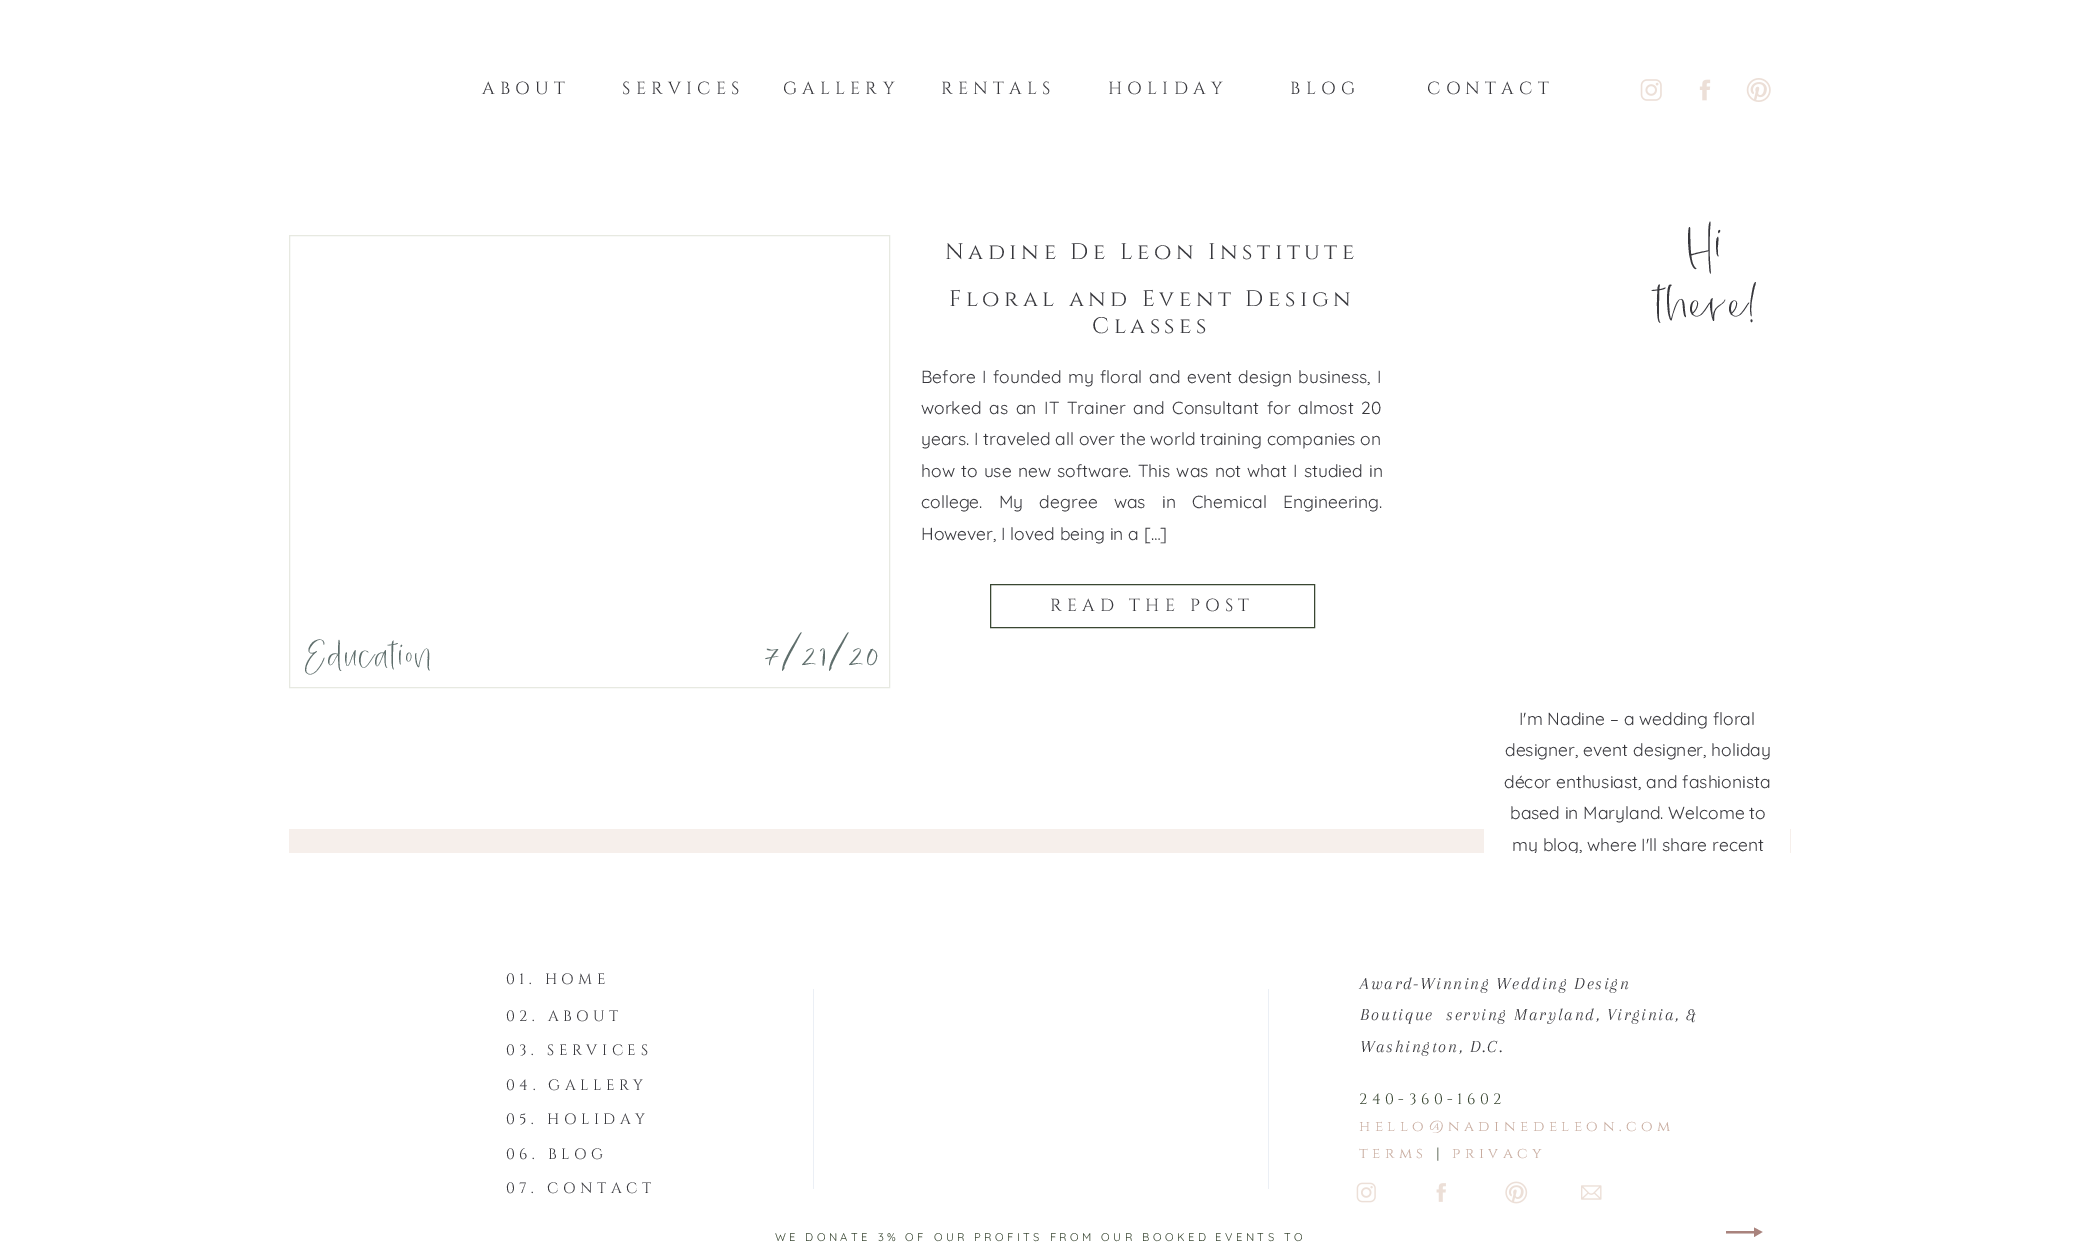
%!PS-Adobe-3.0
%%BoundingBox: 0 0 2080 1256
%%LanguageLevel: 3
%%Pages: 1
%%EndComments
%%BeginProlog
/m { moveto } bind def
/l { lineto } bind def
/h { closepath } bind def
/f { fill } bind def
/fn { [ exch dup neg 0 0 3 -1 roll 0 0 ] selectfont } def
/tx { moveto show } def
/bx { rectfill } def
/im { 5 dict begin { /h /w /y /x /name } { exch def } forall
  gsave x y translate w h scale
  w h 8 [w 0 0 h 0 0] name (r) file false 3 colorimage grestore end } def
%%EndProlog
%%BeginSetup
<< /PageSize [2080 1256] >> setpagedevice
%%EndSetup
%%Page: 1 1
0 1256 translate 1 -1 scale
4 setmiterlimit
1 setgray
0 0 2080 1256 bx
/Cinzel-Regular 17.5 fn
0.22 0.22 0.239 setrgbcolor
482 94 m 5.25 0 (ABOUT) ashow
622 94 m 5.25 0 (SERVICES) ashow
783 94 m 5.25 0 (GALLERY) ashow
941 94 m 5.25 0 (RENTALS) ashow
1108 94 m 5.25 0 (HOLIDAY) ashow
1290 94 m 5.25 0 (BLOG) ashow
1427 94 m 5.25 0 (CONTACT) ashow
(image0.raw) 1640 79 22 22 im
(image1.raw) 1699 79 12 22 im
(image2.raw) 1746 78 25 24 im
0.906 0.914 0.882 setrgbcolor
289.5 235.5 600 452 rectstroke
/Cinzel-Regular 22.5 fn
0.22 0.22 0.239 setrgbcolor
945 259 m 4.5 0 (Nadine De Leon Institute) ashow
949 306 m 4.5 0 (Floral and Event Design) ashow
1092 333 m 4.5 0 (Classes) ashow
/Quicksand-Light 17.5 fn
921 383 m 1.75 0 32 (Before I founded my floral and event design business, I) widthshow
921 414 m 3 0 32 (worked as an IT Trainer and Consultant for almost 20) widthshow
(years. I traveled all over the world training companies on) 921 445 tx
921 477 m 1.4 0 32 (how to use new software. This was not what I studied in) widthshow
921 508 m 11.5 0 32 (college. My degree was in Chemical Engineering.) widthshow
(However, I loved being in a […]) 921 540 tx
0.224 0.278 0.196 setrgbcolor
990.5 584.5 324 43 rectstroke
/Cinzel-Regular 17.5 fn
0.22 0.22 0.239 setrgbcolor
1050 611 m 5.25 0 (READ THE POST) ashow
/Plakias-Regular 37.5 fn
0.373 0.431 0.424 setrgbcolor
(Education) 305 668 tx
/Plakias-Regular 50 fn
(7/21/20) 765 669 tx
0.22 0.22 0.239 setrgbcolor
(Hi) 1688 261 tx
(there!) 1655 321 tx
/Quicksand-Light 17.5 fn
(I'm Nadine – a wedding floral) 1519 725 tx
(designer, event designer, holiday) 1505 756 tx
(décor enthusiast, and fashionista) 1504 788 tx
(based in Maryland. Welcome to) 1510 819 tx
0.965 0.937 0.922 setrgbcolor
289 829 1502 24 bx
1 setgray
1484 829 306 24 bx
0.22 0.22 0.239 setrgbcolor
(my blog, where I'll share recent) 1512 851 tx
1 setgray
1529 853 51 2 bx
/Cinzel-Regular 15 fn
0.22 0.22 0.239 setrgbcolor
506 984 m 4.5 0 (01. HOME) ashow
0.922 0.937 0.961 setrgbcolor
813 989 1 200 bx
1268 989 1 200 bx
/Arapey-Italic 17.5 fn
0.22 0.22 0.239 setrgbcolor
1360 989 m 1.75 0 (Award-Winning Wedding Design) ashow
1360 1020 m 1.75 0 (Boutique  serving Maryland, Virginia, &) ashow
1360 1052 m 1.75 0 (Washington, D.C.) ashow
/Cinzel-Regular 15 fn
506 1021 m 4.5 0 (02. ABOUT) ashow
506 1055 m 4.5 0 (03. SERVICES) ashow
506 1090 m 4.5 0 (04. GALLERY) ashow
506 1124 m 4.5 0 (05. HOLIDAY) ashow
0.224 0.278 0.196 setrgbcolor
1359 1104 m 4.5 0 (240-360-1602) ashow
0.784 0.671 0.62 setrgbcolor
1359 1131 m 4.5 0 (hello@nadinedeleon.com) ashow
1359 1158 m 4.5 0 (terms) ashow
0.224 0.278 0.196 setrgbcolor
1436 1158 m 4.5 0 (|) ashow
0.784 0.671 0.62 setrgbcolor
1452 1158 m 4.5 0 (privacy) ashow
0.22 0.22 0.239 setrgbcolor
506 1159 m 4.5 0 (06. BLOG) ashow
506 1193 m 4.5 0 (07. CONTACT) ashow
(image3.raw) 1356 1182 20 21 im
(image4.raw) 1436 1183 10 19 im
(image5.raw) 1505 1181 23 23 im
(image6.raw) 1581 1185 21 15 im
/Quicksand-Light 11.25 fn
0.224 0.278 0.196 setrgbcolor
775 1241 m 3.38 0 (WE DONATE 3% OF OUR PROFITS FROM OUR BOOKED EVENTS TO) ashow
0.663 0.514 0.49 setrgbcolor
1754 1237 m 1754 1233.5 l 1726 1233.5 l 1726 1231 l 1754 1231 l 1754 1227.5 l 1762.5 1232 l h f
showpage
%%EOF
